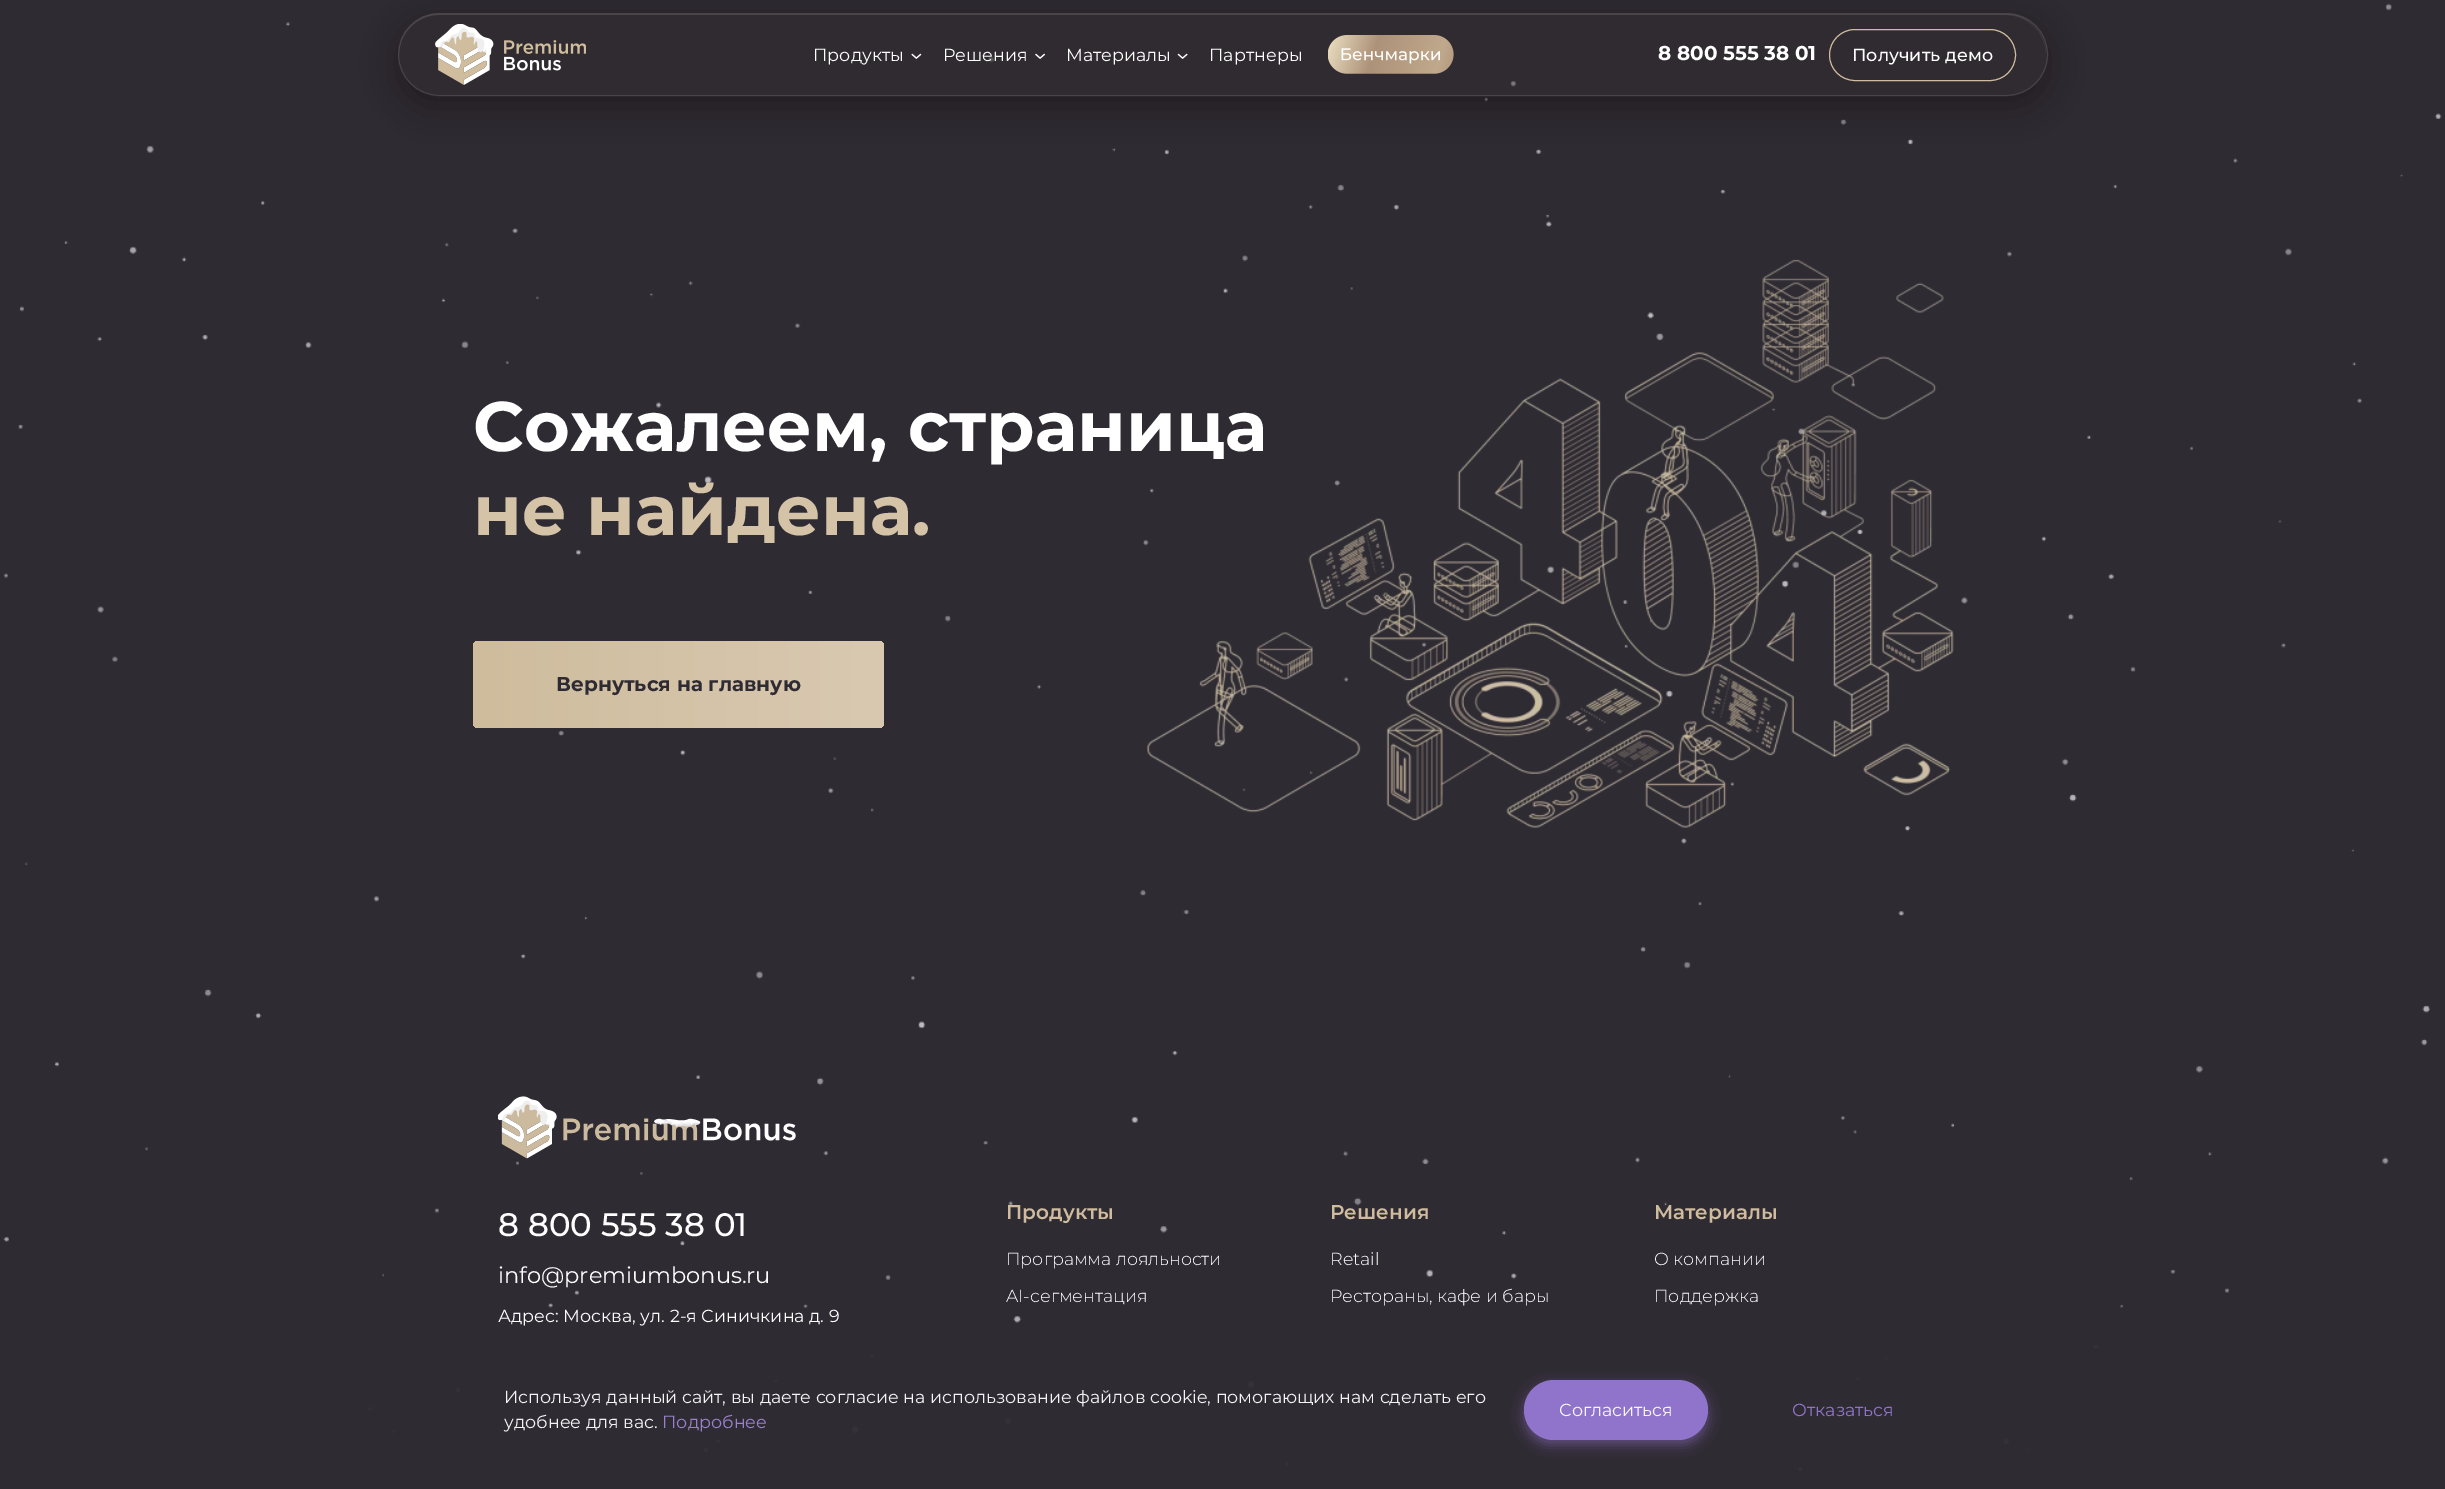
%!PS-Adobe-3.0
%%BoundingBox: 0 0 2445 1489
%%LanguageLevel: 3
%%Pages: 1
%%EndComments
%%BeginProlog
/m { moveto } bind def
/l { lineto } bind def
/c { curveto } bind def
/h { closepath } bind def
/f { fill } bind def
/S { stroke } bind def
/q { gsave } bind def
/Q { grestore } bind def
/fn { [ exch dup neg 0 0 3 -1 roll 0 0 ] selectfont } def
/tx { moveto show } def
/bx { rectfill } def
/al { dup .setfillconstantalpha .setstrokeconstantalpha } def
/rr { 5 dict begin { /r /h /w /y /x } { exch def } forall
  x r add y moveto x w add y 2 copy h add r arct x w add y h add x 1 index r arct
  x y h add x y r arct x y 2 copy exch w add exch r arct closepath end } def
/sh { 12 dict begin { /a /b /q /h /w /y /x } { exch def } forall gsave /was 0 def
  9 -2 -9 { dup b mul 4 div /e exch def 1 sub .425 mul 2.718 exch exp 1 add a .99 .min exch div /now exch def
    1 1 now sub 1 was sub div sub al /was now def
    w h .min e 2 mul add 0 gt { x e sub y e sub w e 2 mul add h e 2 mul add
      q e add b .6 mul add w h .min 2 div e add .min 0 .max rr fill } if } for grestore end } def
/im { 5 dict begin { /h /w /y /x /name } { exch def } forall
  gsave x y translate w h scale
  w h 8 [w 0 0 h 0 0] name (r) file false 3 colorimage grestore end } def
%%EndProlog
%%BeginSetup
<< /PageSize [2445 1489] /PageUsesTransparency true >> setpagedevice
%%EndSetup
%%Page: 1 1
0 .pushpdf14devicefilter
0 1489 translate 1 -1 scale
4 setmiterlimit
0.184 0.169 0.2 setrgbcolor
0 0 2445 1489 bx
(image0.raw) 3 3 2439 1469 im
q
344 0 m 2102 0 l 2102 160 l 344 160 l h 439.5 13 m 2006.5 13 l 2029.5 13 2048 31.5 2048 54.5 c 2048 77.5 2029.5 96 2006.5 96 c 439.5 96 l 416.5 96 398 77.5 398 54.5 c 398 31.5 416.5 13 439.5 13 c h eoclip newpath
0 setgray
398 23 1650 83 41.5 17.5 0.35 sh
Q
0.44 al
0.184 0.169 0.173 setrgbcolor
398 13 1650 83 41.5 rr f
1 al
0.267 0.251 0.271 setrgbcolor
439 15 m 2006 15 l 2028 15 2046 33 2046 55 c 2046 42 2039 29 2028 21 c 2021 16 2014 14 2006 14 c 440 14 l 417 14 399 33 399 55 c 399 33 417 15 439 15 c h f
0.12 al
1 setgray
398.5 13.5 1649 82 41 rr S
1 al
(image1.raw) 435 24 151 61 im
/Montserrat-Regular 17.5 fn
(Продукты) 813 61 tx
(image2.raw) 911 53 11 6 im
(Решения) 943 61 tx
(image3.raw) 1035 53 10 6 im
(Материалы) 1066 61 tx
(image4.raw) 1177 53 11 6 im
(Партнеры) 1209 61 tx
(image5.raw) 1328 35 126 39 im
/Montserrat-Bold 20 fn
(8 800 555 38 01) 1658 60 tx
0.812 0.733 0.616 setrgbcolor
1829.5 29.5 186 51 25.5 rr S
/Montserrat-Medium 17.5 fn
1 setgray
(Получить демо) 1852 61 tx
(image6.raw) 1147 259 807 569 im
/Montserrat-Bold 70 fn
(Сожалеем, страница) 473 451 tx
0.831 0.765 0.655 setrgbcolor
(не найдена.) 473 535 tx
q 473 641 411 87 6 rr clip newpath
<< /ShadingType 2 /ColorSpace /DeviceRGB /Coords [473 684 884 684] /Extend [true true] /Function << /FunctionType 2 /Domain [0 1] /C0 [0.812 0.737 0.616] /C1 [0.851 0.788 0.694] /N 1 >> >> shfill Q
/Montserrat-Bold 20 fn
0.184 0.169 0.2 setrgbcolor
(Вернуться на главную) 556 691 tx
(image7.raw) 498 1096 298 63 im
/Montserrat-Medium 32.5 fn
1 setgray
(8 800 555 38 01) 498 1236 tx
/Montserrat-Regular 22.5 fn
(info@premiumbonus.ru) 498 1283 tx
/Montserrat-Regular 17.5 fn
(Адрес: Москва, ул. 2-я Синичкина д. 9) 498 1322 tx
/Montserrat-SemiBold 20 fn
0.812 0.737 0.62 setrgbcolor
(Продукты) 1006 1219 tx
/Montserrat-Light 17.5 fn
1 setgray
(Программа лояльности) 1006 1265 tx
(AI-сегментация) 1006 1302 tx
/Montserrat-SemiBold 20 fn
0.812 0.737 0.62 setrgbcolor
(Решения) 1330 1219 tx
/Montserrat-Light 17.5 fn
1 setgray
(Retail) 1330 1265 tx
(Рестораны, кафе и бары) 1330 1302 tx
/Montserrat-SemiBold 20 fn
0.812 0.737 0.62 setrgbcolor
(Материалы) 1654 1219 tx
/Montserrat-Light 17.5 fn
1 setgray
(О компании) 1654 1265 tx
(Поддержка) 1654 1302 tx
0.95 al
0.184 0.169 0.2 setrgbcolor
112 1334 1987 138 bx
/Montserrat-Regular 17.5 fn
1 al
0.961 0.957 0.961 setrgbcolor
(Используя данный сайт, вы даете согласие на использование файлов cookie, помогающих нам сделать его) 504 1403 tx
(удобнее для вас.) 504 1428 tx
0.604 0.506 0.812 setrgbcolor
(Подробнее) 662 1428 tx
q
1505 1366 m 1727 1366 l 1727 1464 l 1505 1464 l h 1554 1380 m 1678 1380 l 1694.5 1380 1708 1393.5 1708 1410 c 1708 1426.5 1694.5 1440 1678 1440 c 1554 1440 l 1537.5 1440 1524 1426.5 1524 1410 c 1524 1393.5 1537.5 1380 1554 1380 c h eoclip newpath
0.584 0.471 0.827 setrgbcolor
1524 1385 184 60 30 6 0.47 sh
Q
0.95 al
0.584 0.471 0.827 setrgbcolor
1524 1380 184 60 30 rr f
1 al
0.976 0.973 0.988 setrgbcolor
(Согласиться) 1559 1416 tx
0.565 0.455 0.796 setrgbcolor
(Отказаться) 1792 1416 tx
.poppdf14devicefilter showpage
%%EOF
